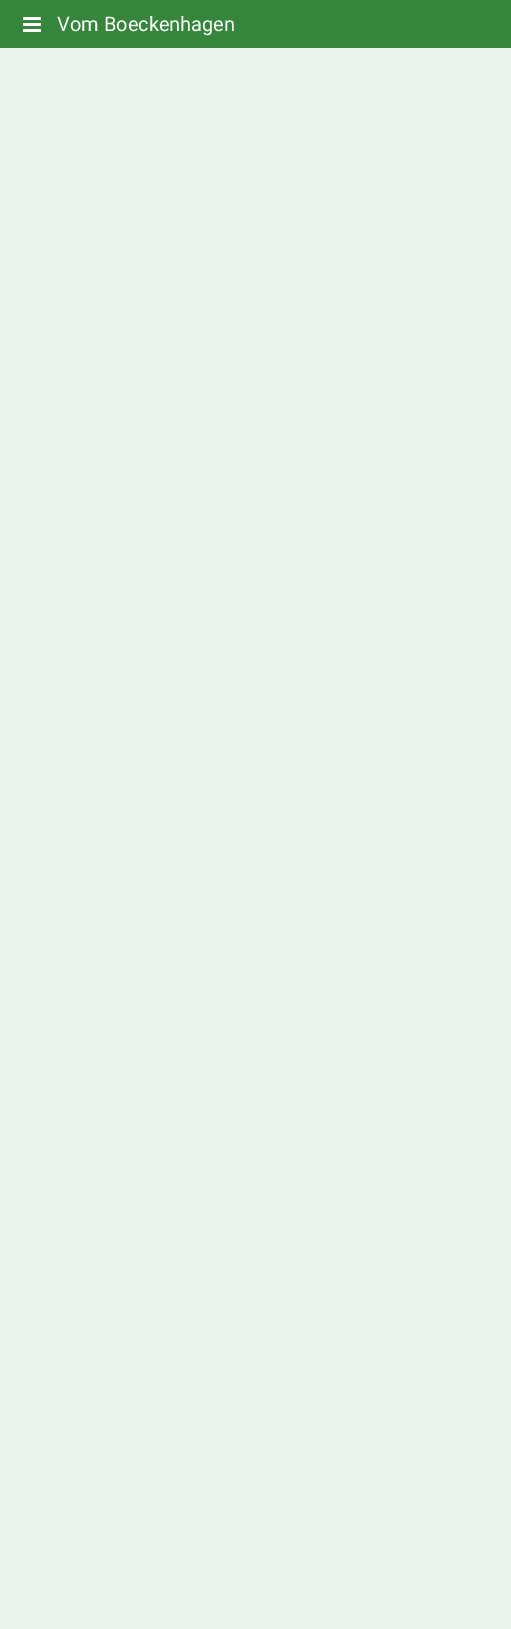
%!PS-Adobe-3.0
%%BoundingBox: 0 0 511 1629
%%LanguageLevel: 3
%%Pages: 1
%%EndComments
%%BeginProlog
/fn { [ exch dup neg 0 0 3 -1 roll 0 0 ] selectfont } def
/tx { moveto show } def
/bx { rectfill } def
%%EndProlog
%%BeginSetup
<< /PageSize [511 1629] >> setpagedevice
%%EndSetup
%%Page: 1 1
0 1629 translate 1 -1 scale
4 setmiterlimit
0.922 0.957 0.925 setrgbcolor
0 0 511 1629 bx
0.208 0.525 0.227 setrgbcolor
0 0 511 48 bx
1 setgray
23 17 18 3 bx
23 23 18 3 bx
23 29 18 3 bx
/Roboto-Regular 20 fn
(Vom Boeckenhagen) 57 31 tx
showpage
%%EOF
